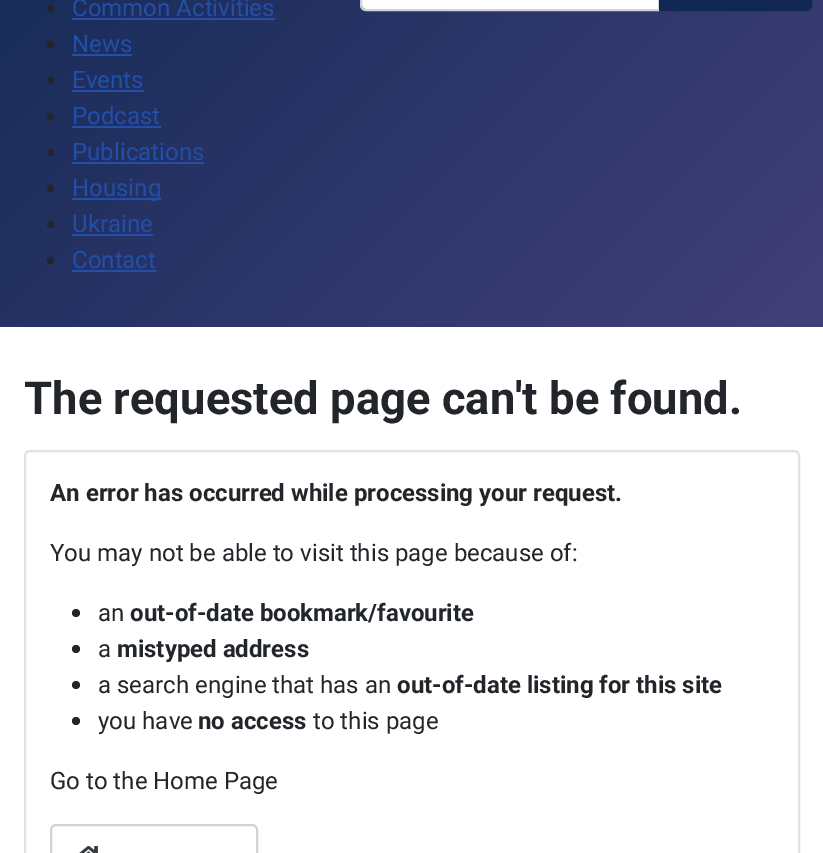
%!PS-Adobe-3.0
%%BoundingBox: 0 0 823 853
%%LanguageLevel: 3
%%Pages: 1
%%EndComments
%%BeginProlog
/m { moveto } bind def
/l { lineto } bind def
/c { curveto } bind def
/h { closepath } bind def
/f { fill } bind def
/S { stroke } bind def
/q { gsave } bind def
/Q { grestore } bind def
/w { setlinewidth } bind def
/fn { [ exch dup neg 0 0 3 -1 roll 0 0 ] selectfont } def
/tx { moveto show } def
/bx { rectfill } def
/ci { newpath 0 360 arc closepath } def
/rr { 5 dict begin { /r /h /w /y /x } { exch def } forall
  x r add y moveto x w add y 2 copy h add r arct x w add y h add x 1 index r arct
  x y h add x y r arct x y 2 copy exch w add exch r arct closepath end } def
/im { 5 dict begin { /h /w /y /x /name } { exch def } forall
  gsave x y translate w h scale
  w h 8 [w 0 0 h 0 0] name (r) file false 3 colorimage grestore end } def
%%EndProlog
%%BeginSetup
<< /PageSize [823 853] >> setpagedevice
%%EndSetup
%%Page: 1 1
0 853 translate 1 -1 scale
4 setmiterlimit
1 setgray
0 0 823 853 bx
q 0 0 m 823 0 l 823 327 l 0 327 l h clip newpath
<< /ShadingType 2 /ColorSpace /DeviceRGB /Coords [72 -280 752 399] /Extend [true true] /Function << /FunctionType 2 /Domain [0 1] /C0 [0.067 0.157 0.333] /C1 [0.259 0.251 0.467] /N 1 >> >> shfill Q
0.133 0.149 0.165 setrgbcolor
50.5 8.5 3.5 ci f
/Roboto-Regular 24 fn
0.133 0.31 0.667 setrgbcolor
(Common Activities) 72 16 tx
72 18 203 2 bx
0.133 0.149 0.165 setrgbcolor
50.5 44.5 3.5 ci f
0.133 0.31 0.667 setrgbcolor
(News) 72 52 tx
72 54 60 2 bx
0.133 0.149 0.165 setrgbcolor
50.5 80.5 3.5 ci f
0.133 0.31 0.667 setrgbcolor
(Events) 72 88 tx
72 90 72 2 bx
0.133 0.149 0.165 setrgbcolor
50.5 116.5 3.5 ci f
0.133 0.31 0.667 setrgbcolor
(Podcast) 72 124 tx
72 126 89 2 bx
0.133 0.149 0.165 setrgbcolor
50.5 152.5 3.5 ci f
0.133 0.31 0.667 setrgbcolor
(Publications) 72 160 tx
72 162 132 2 bx
0.133 0.149 0.165 setrgbcolor
50.5 188.5 3.5 ci f
0.133 0.31 0.667 setrgbcolor
72 198 89 2 bx
(Housing) 72 196 tx
0.133 0.149 0.165 setrgbcolor
50.5 224.5 3.5 ci f
0.133 0.31 0.667 setrgbcolor
(Ukraine) 72 232 tx
72 234 81 2 bx
0.133 0.149 0.165 setrgbcolor
50.5 260.5 3.5 ci f
0.133 0.31 0.667 setrgbcolor
(Contact) 72 268 tx
72 270 84 2 bx
1 setgray
367 -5 m 659 -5 l 659 9 l 367 9 l 364 9 362 7 362 4 c 362 0 l 362 -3 364 -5 367 -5 c h f
0.808 0.831 0.855 setrgbcolor
2 w
366 -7 m 659 -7 l 659 10 l 366 10 l 363 10 361 8 361 5 c 361 -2 l 361 -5 363 -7 366 -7 c h S
0.067 0.157 0.333 setrgbcolor
660 -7 m 806 -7 l 809 -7 811 -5 811 -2 c 811 5 l 811 8 809 10 806 10 c 660 10 l h q f Q
S
/Roboto-Bold 45.4 fn
0.133 0.149 0.165 setrgbcolor
(The requested page can't be found.) 24 414 tx
0.875 0.89 0.906 setrgbcolor
25 451 774 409 5 rr S
/Roboto-Bold 24 fn
0.133 0.149 0.165 setrgbcolor
(An error has occurred while processing your request.) 50 501 tx
/Roboto-Regular 24 fn
(You may not be able to visit this page because of:) 50 561 tx
76 613 4 ci f
(an) 98 621 tx
/Roboto-Bold 24 fn
(out-of-date bookmark/favourite) 130 621 tx
76 649 4 ci f
/Roboto-Regular 24 fn
(a) 98 657 tx
/Roboto-Bold 24 fn
(mistyped address) 117 657 tx
76 685 4 ci f
/Roboto-Regular 24 fn
(a search engine that has an) 98 693 tx
/Roboto-Bold 24 fn
(out-of-date listing for this site) 397 693 tx
76 721 4 ci f
/Roboto-Regular 24 fn
(you have) 98 729 tx
/Roboto-Bold 24 fn
(no access) 198 729 tx
/Roboto-Regular 24 fn
(to this page) 313 729 tx
(Go to the Home Page) 50 789 tx
0.808 0.831 0.855 setrgbcolor
51 825 206 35 5 rr S
(image0.raw) 79 846 19 7 im
showpage
%%EOF
